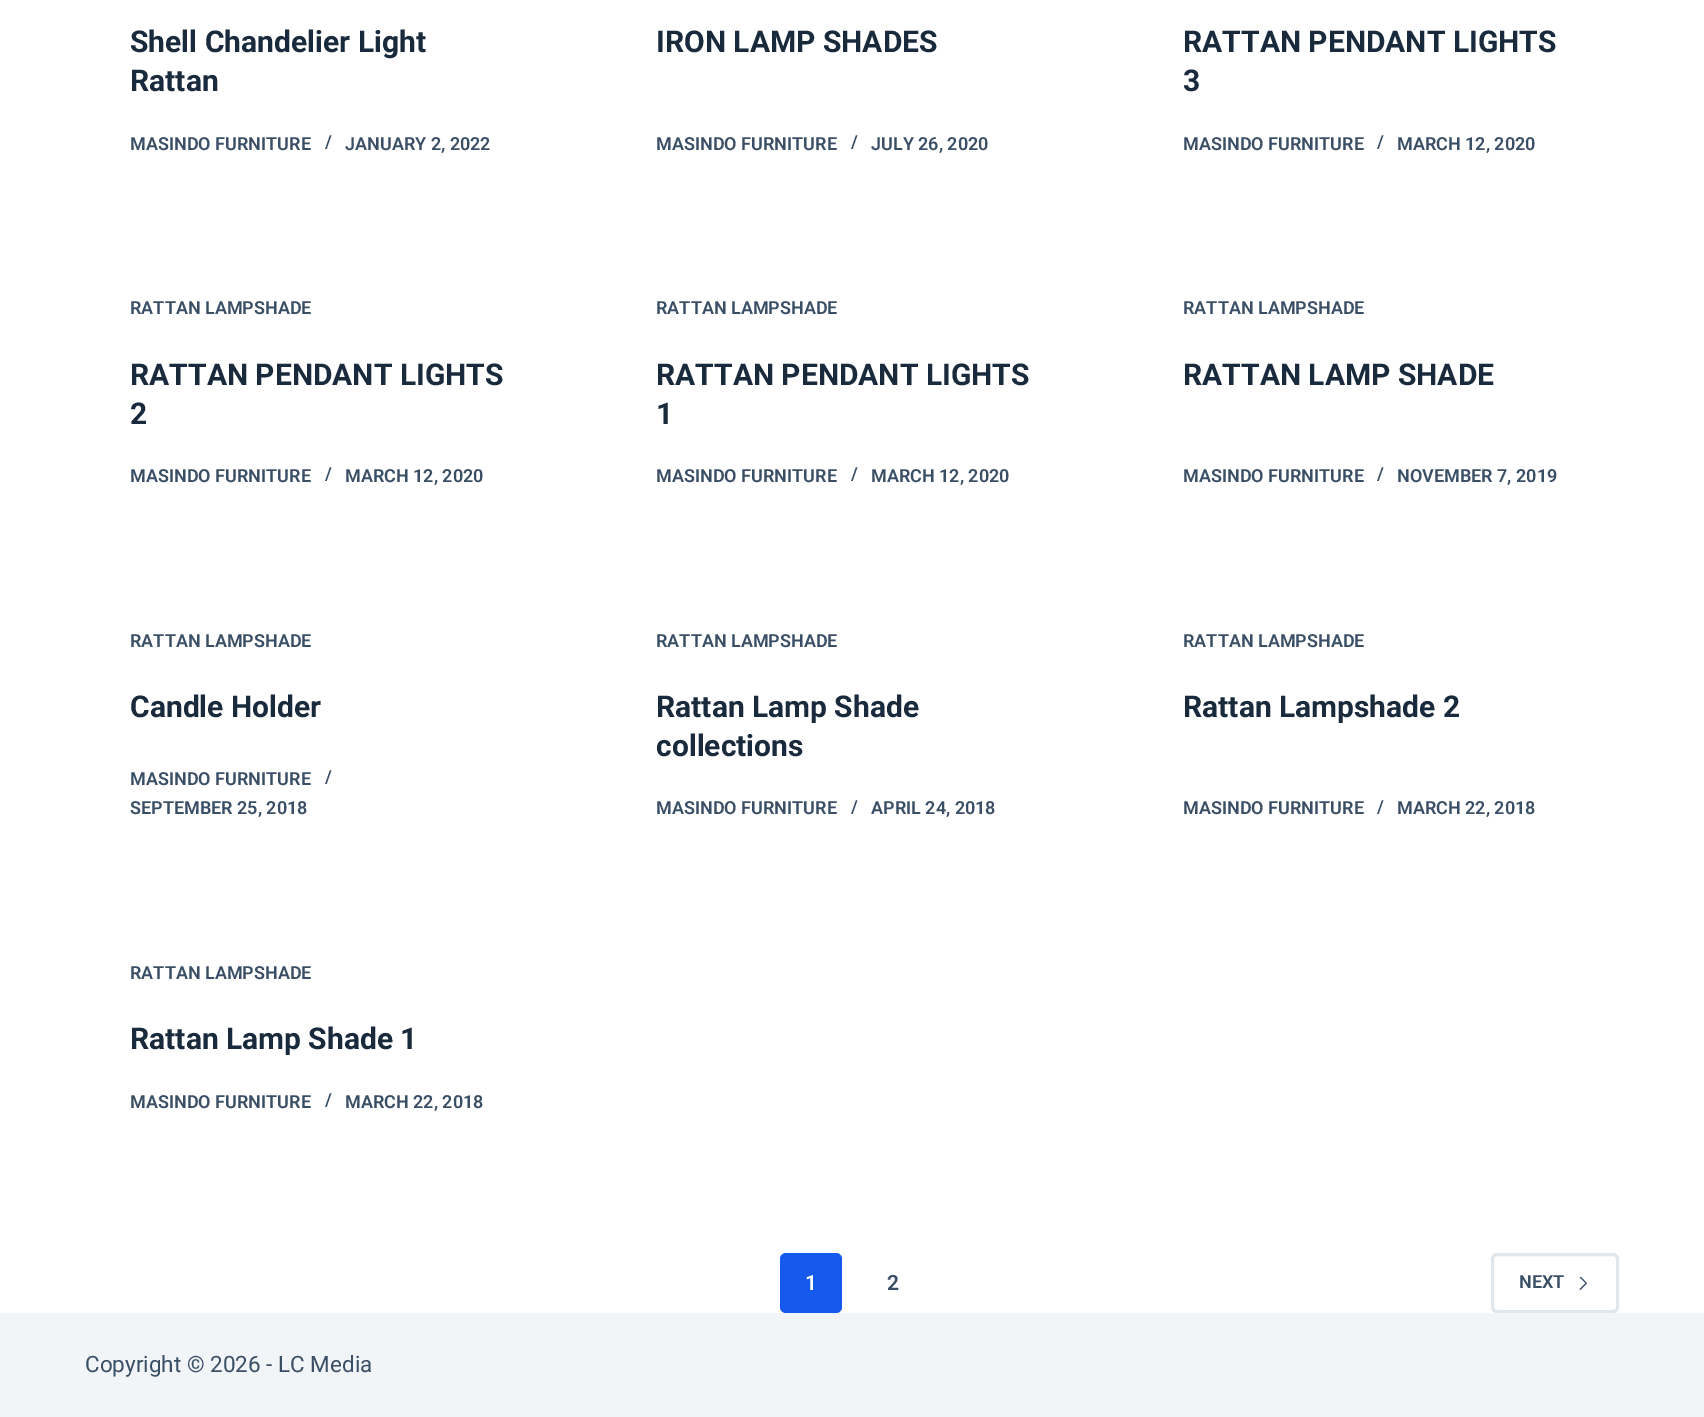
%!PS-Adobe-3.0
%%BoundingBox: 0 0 1704 1417
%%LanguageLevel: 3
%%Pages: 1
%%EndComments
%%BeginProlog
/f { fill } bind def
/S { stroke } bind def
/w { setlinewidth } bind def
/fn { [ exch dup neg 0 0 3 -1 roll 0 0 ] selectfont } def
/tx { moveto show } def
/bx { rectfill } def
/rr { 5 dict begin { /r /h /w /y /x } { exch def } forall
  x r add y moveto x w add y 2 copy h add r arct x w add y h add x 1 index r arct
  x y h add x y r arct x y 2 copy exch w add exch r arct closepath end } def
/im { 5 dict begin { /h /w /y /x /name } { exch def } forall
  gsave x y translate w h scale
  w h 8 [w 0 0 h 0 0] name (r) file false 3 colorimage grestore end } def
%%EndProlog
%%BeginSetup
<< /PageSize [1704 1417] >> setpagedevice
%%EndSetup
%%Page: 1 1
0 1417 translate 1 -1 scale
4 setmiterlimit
1 setgray
0 0 1704 1417 bx
/Roboto-Bold 30 fn
0.098 0.165 0.239 setrgbcolor
(Shell Chandelier Light) 130 52 tx
(Rattan) 130 91 tx
/Roboto-SemiBold 18 fn
0.227 0.31 0.4 setrgbcolor
(MASINDO FURNITURE) 130 150 tx
(/) 325 148 tx
(JANUARY 2, 2022) 345 150 tx
/Roboto-Bold 30 fn
0.098 0.165 0.239 setrgbcolor
(IRON LAMP SHADES) 656 52 tx
/Roboto-SemiBold 18 fn
0.227 0.31 0.4 setrgbcolor
(MASINDO FURNITURE) 656 150 tx
(/) 851 148 tx
(JULY 26, 2020) 871 150 tx
/Roboto-Bold 30 fn
0.098 0.165 0.239 setrgbcolor
(RATTAN PENDANT LIGHTS) 1183 52 tx
(3) 1183 91 tx
/Roboto-SemiBold 18 fn
0.227 0.31 0.4 setrgbcolor
(MASINDO FURNITURE) 1183 150 tx
(/) 1377 148 tx
(MARCH 12, 2020) 1397 150 tx
(RATTAN LAMPSHADE) 130 314 tx
/Roboto-Bold 30 fn
0.098 0.165 0.239 setrgbcolor
(RATTAN PENDANT LIGHTS) 130 385 tx
(2) 130 424 tx
/Roboto-SemiBold 18 fn
0.227 0.31 0.4 setrgbcolor
(MASINDO FURNITURE) 130 482 tx
(/) 325 480 tx
(MARCH 12, 2020) 345 482 tx
(RATTAN LAMPSHADE) 656 314 tx
/Roboto-Bold 30 fn
0.098 0.165 0.239 setrgbcolor
(RATTAN PENDANT LIGHTS) 656 385 tx
(1) 656 424 tx
/Roboto-SemiBold 18 fn
0.227 0.31 0.4 setrgbcolor
(MASINDO FURNITURE) 656 482 tx
(/) 851 480 tx
(MARCH 12, 2020) 871 482 tx
(RATTAN LAMPSHADE) 1183 314 tx
/Roboto-Bold 30 fn
0.098 0.165 0.239 setrgbcolor
(RATTAN LAMP SHADE) 1183 385 tx
/Roboto-SemiBold 18 fn
0.227 0.31 0.4 setrgbcolor
(MASINDO FURNITURE) 1183 482 tx
(/) 1377 480 tx
(NOVEMBER 7, 2019) 1397 482 tx
(RATTAN LAMPSHADE) 130 647 tx
/Roboto-Bold 30 fn
0.098 0.165 0.239 setrgbcolor
(Candle Holder) 130 717 tx
/Roboto-SemiBold 18 fn
0.227 0.31 0.4 setrgbcolor
(MASINDO FURNITURE) 130 785 tx
(/) 325 783 tx
(SEPTEMBER 25, 2018) 130 814 tx
(RATTAN LAMPSHADE) 656 647 tx
/Roboto-Bold 30 fn
0.098 0.165 0.239 setrgbcolor
(Rattan Lamp Shade) 656 717 tx
(collections) 656 756 tx
/Roboto-SemiBold 18 fn
0.227 0.31 0.4 setrgbcolor
(MASINDO FURNITURE) 656 814 tx
(/) 851 813 tx
(APRIL 24, 2018) 871 814 tx
(RATTAN LAMPSHADE) 1183 647 tx
/Roboto-Bold 30 fn
0.098 0.165 0.239 setrgbcolor
(Rattan Lampshade 2) 1183 717 tx
/Roboto-SemiBold 18 fn
0.227 0.31 0.4 setrgbcolor
(MASINDO FURNITURE) 1183 814 tx
(/) 1377 813 tx
(MARCH 22, 2018) 1397 814 tx
(RATTAN LAMPSHADE) 130 979 tx
/Roboto-Bold 30 fn
0.098 0.165 0.239 setrgbcolor
(Rattan Lamp Shade 1) 130 1049 tx
/Roboto-SemiBold 18 fn
0.227 0.31 0.4 setrgbcolor
(MASINDO FURNITURE) 130 1108 tx
(/) 325 1106 tx
(MARCH 22, 2018) 345 1108 tx
0.082 0.349 0.929 setrgbcolor
780 1253 62 60 6 rr f
/Roboto-SemiBold 21 fn
1 setgray
(1) 805 1290 tx
0.227 0.31 0.4 setrgbcolor
(2) 887 1290 tx
0.882 0.91 0.929 setrgbcolor
3 w
1492.5 1254.5 125 57 4.5 rr S
/Roboto-SemiBold 18 fn
0.227 0.31 0.4 setrgbcolor
(NEXT) 1519 1288 tx
(image0.raw) 1579 1277 8 13 im
0.949 0.961 0.969 setrgbcolor
0 1313 1704 104 bx
/Roboto-Regular 22.5 fn
0.227 0.31 0.4 setrgbcolor
(Copyright © 2026 - LC Media) 85 1372 tx
showpage
%%EOF
